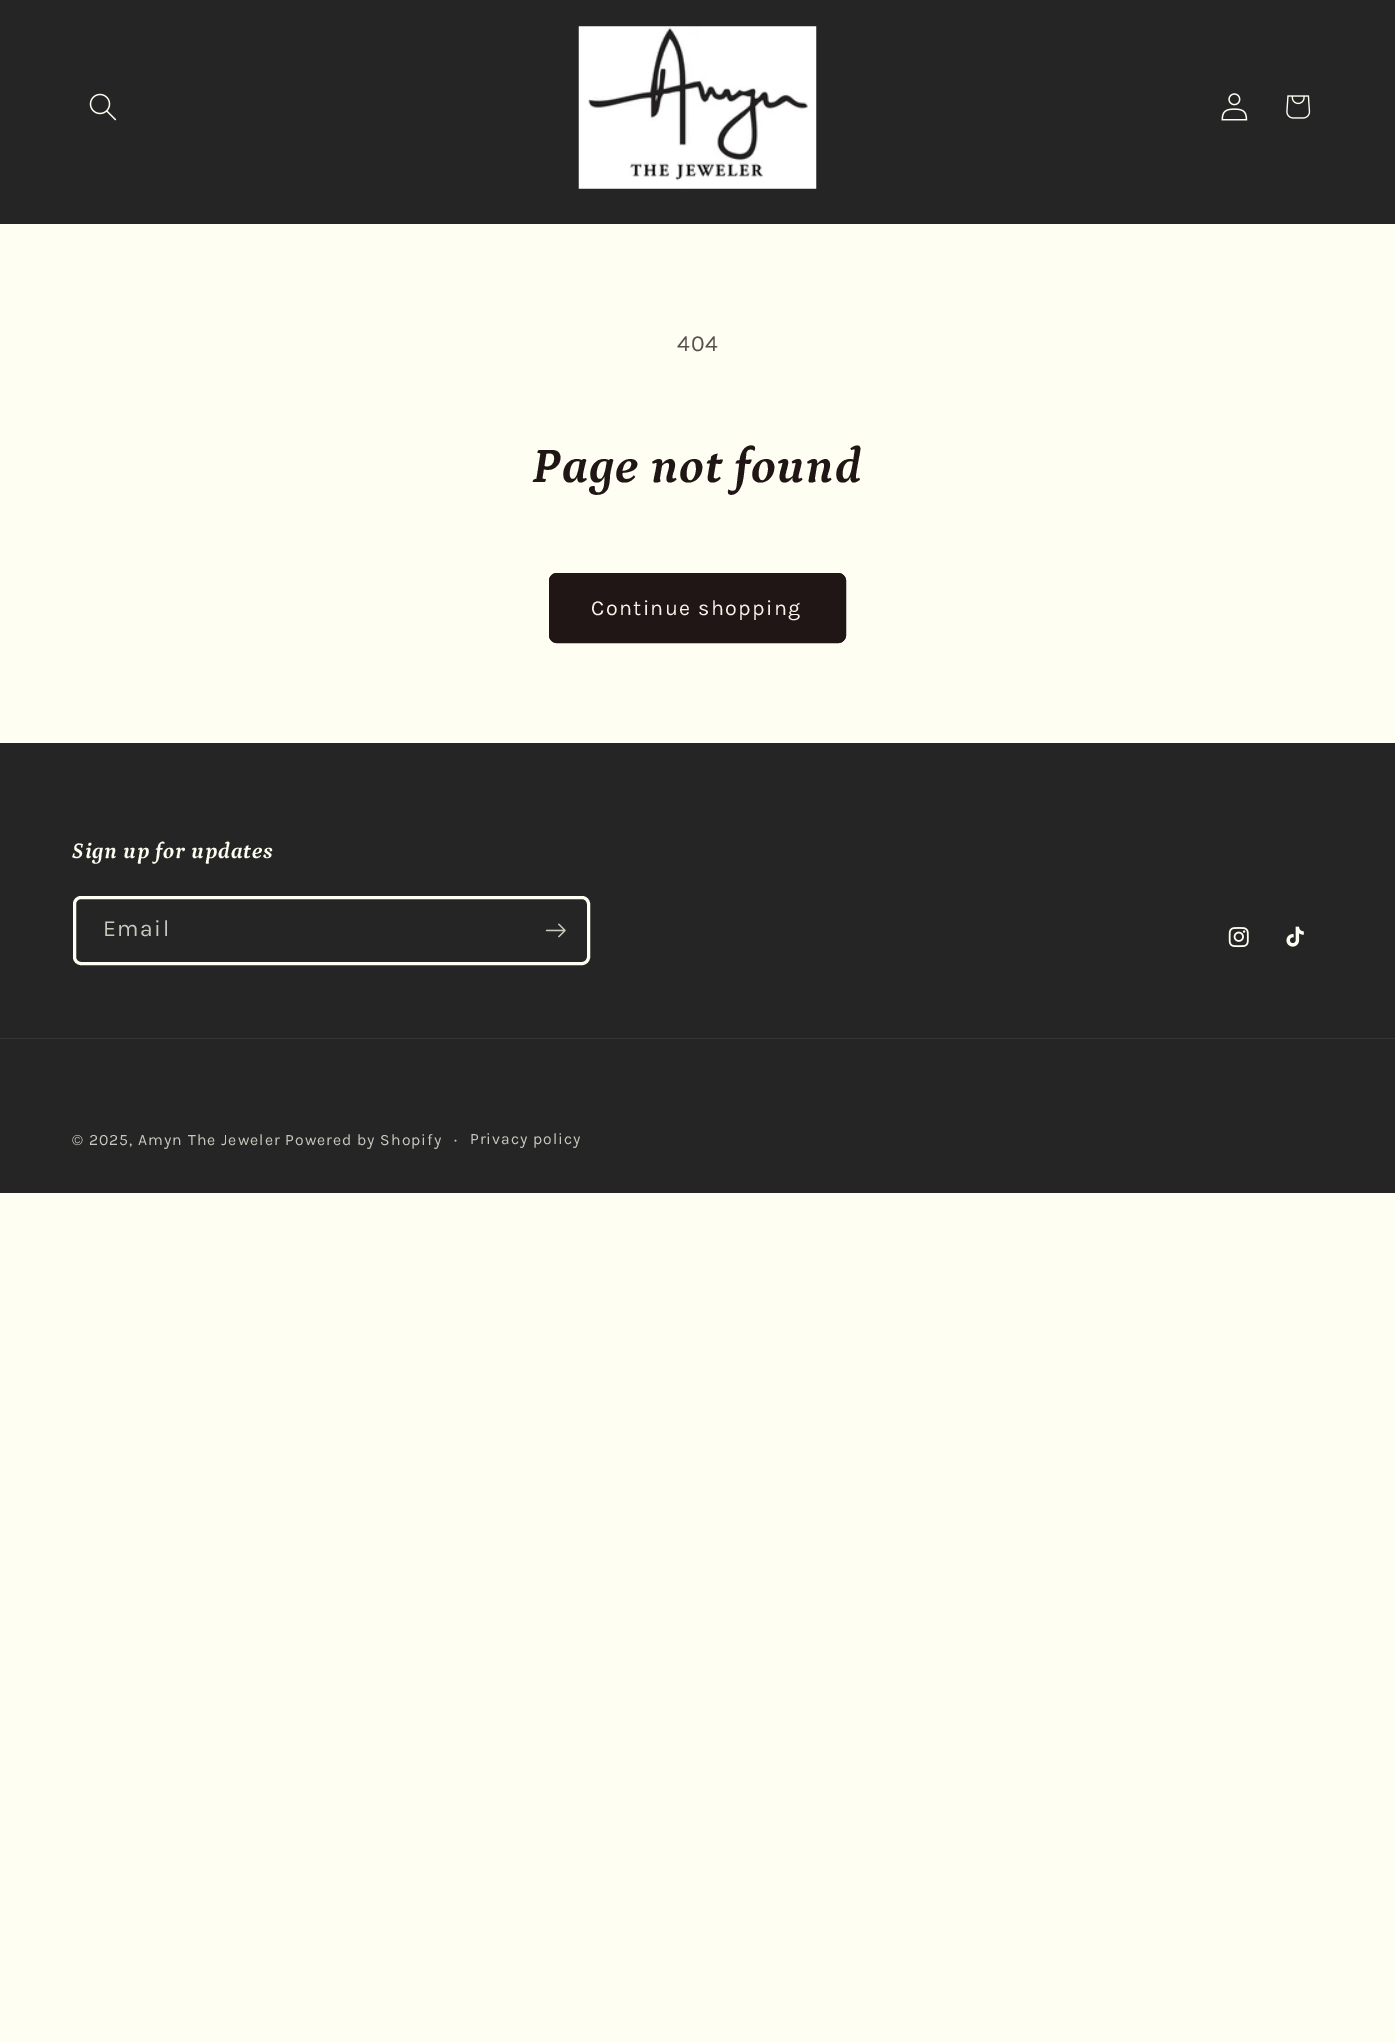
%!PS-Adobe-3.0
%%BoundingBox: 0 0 1395 2043
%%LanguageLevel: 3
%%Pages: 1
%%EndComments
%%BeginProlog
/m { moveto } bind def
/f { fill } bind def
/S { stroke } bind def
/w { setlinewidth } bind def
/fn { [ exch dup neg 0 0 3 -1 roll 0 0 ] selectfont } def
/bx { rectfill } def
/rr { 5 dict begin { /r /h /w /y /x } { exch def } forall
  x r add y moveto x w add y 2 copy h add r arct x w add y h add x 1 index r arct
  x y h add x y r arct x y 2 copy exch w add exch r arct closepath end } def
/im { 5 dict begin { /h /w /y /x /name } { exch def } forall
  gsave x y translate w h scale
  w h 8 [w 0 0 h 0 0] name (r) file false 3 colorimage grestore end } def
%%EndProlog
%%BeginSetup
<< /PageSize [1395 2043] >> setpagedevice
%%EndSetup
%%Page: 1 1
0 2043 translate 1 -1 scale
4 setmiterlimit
1 0.996 0.949 setrgbcolor
0 0 1395 2043 bx
0.145 setgray
0 0 1395 224 bx
(image0.raw) 89 93 28 28 im
(image1.raw) 578 26 239 163 im
(image2.raw) 1221 93 27 28 im
(image3.raw) 1286 95 25 24 im
/Karla-Regular 23 fn
0.345 0.314 0.302 setrgbcolor
677 351 m 1 0 (404) ashow
/Petrona-BoldItalic 50 fn
0.125 0.086 0.086 setrgbcolor
532 482 m 0.75 0 (Page not found) ashow
549 573 297 70 8 rr f
3 w
550.5 574.5 294 67 6.5 rr S
/Karla-Regular 21.5 fn
0.976 0.957 0.914 setrgbcolor
591 615 m 1.4 0 (Continue shopping) ashow
0.145 setgray
0 743 1395 450 bx
/Petrona-BoldItalic 22.5 fn
1 0.996 0.949 setrgbcolor
72 858 m 0.75 0 (Sign up for updates) ashow
74.5 897.5 514 66 6.5 rr S
/Karla-Regular 23 fn
0.788 0.784 0.749 setrgbcolor
103 936 m 1.4 0 (Email) ashow
(image4.raw) 545 923 21 15 im
(image5.raw) 1228 927 21 21 im
(image6.raw) 1286 926 18 21 im
0.212 0.212 0.208 setrgbcolor
0 1038 1395 1 bx
/Karla-Regular 15.8 fn
0.788 0.784 0.749 setrgbcolor
72 1145 m 1 0 (© 2025, Amyn The Jeweler Powered by Shopify) ashow
/Karla-Regular 17 fn
454 1145 m 1 0 (·) ashow
/Karla-Regular 15.8 fn
470 1144 m 1 0 (Privacy policy) ashow
showpage
%%EOF
